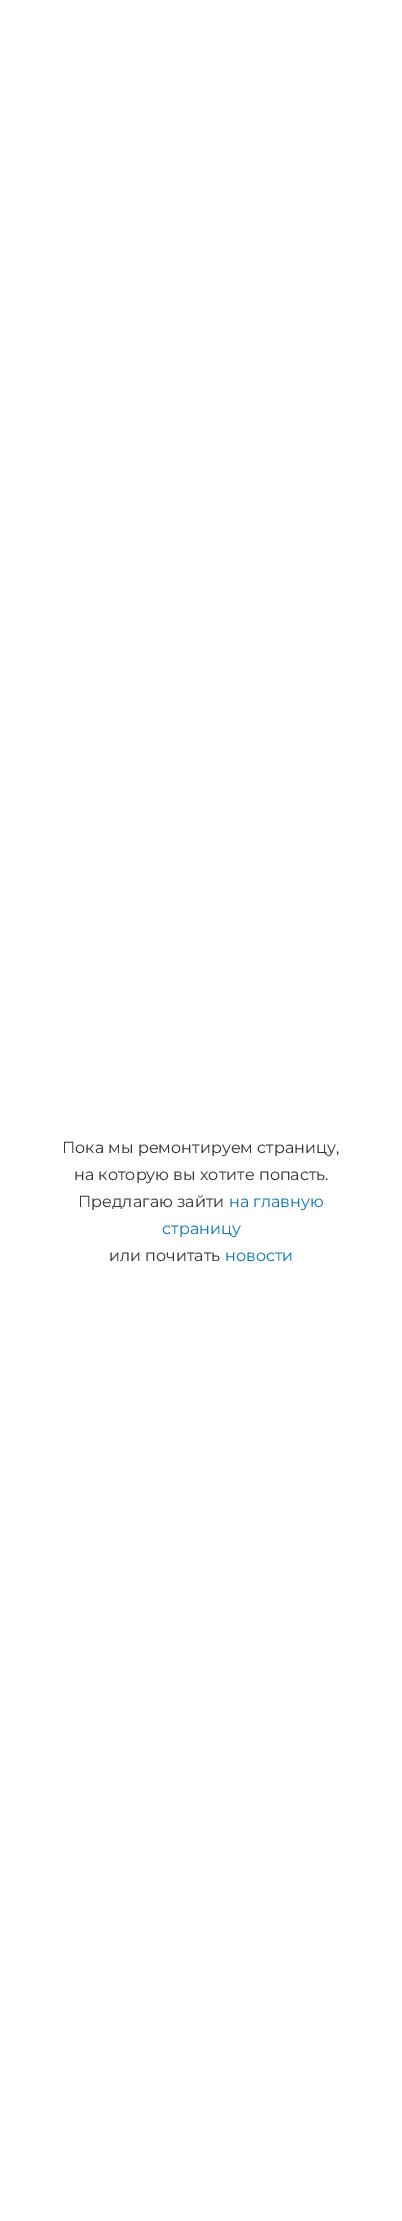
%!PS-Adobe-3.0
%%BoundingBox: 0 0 402 2221
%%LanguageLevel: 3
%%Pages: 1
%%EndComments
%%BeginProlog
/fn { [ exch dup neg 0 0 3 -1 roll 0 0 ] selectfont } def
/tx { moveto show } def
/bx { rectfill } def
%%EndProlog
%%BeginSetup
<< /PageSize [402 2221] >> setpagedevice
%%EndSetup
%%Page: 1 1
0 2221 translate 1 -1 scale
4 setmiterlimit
1 setgray
0 0 402 2221 bx
/Montserrat-Regular 16 fn
0.2 setgray
(Пока мы ремонтируем страницу,) 62 1153 tx
(на которую вы хотите попасть.) 74 1180 tx
(Предлагаю зайти) 78 1207 tx
0.059 0.478 0.698 setrgbcolor
(на главную) 229 1207 tx
(страницу) 162 1234 tx
0.2 setgray
(или почитать) 109 1261 tx
0.059 0.478 0.698 setrgbcolor
(новости) 225 1261 tx
showpage
%%EOF
